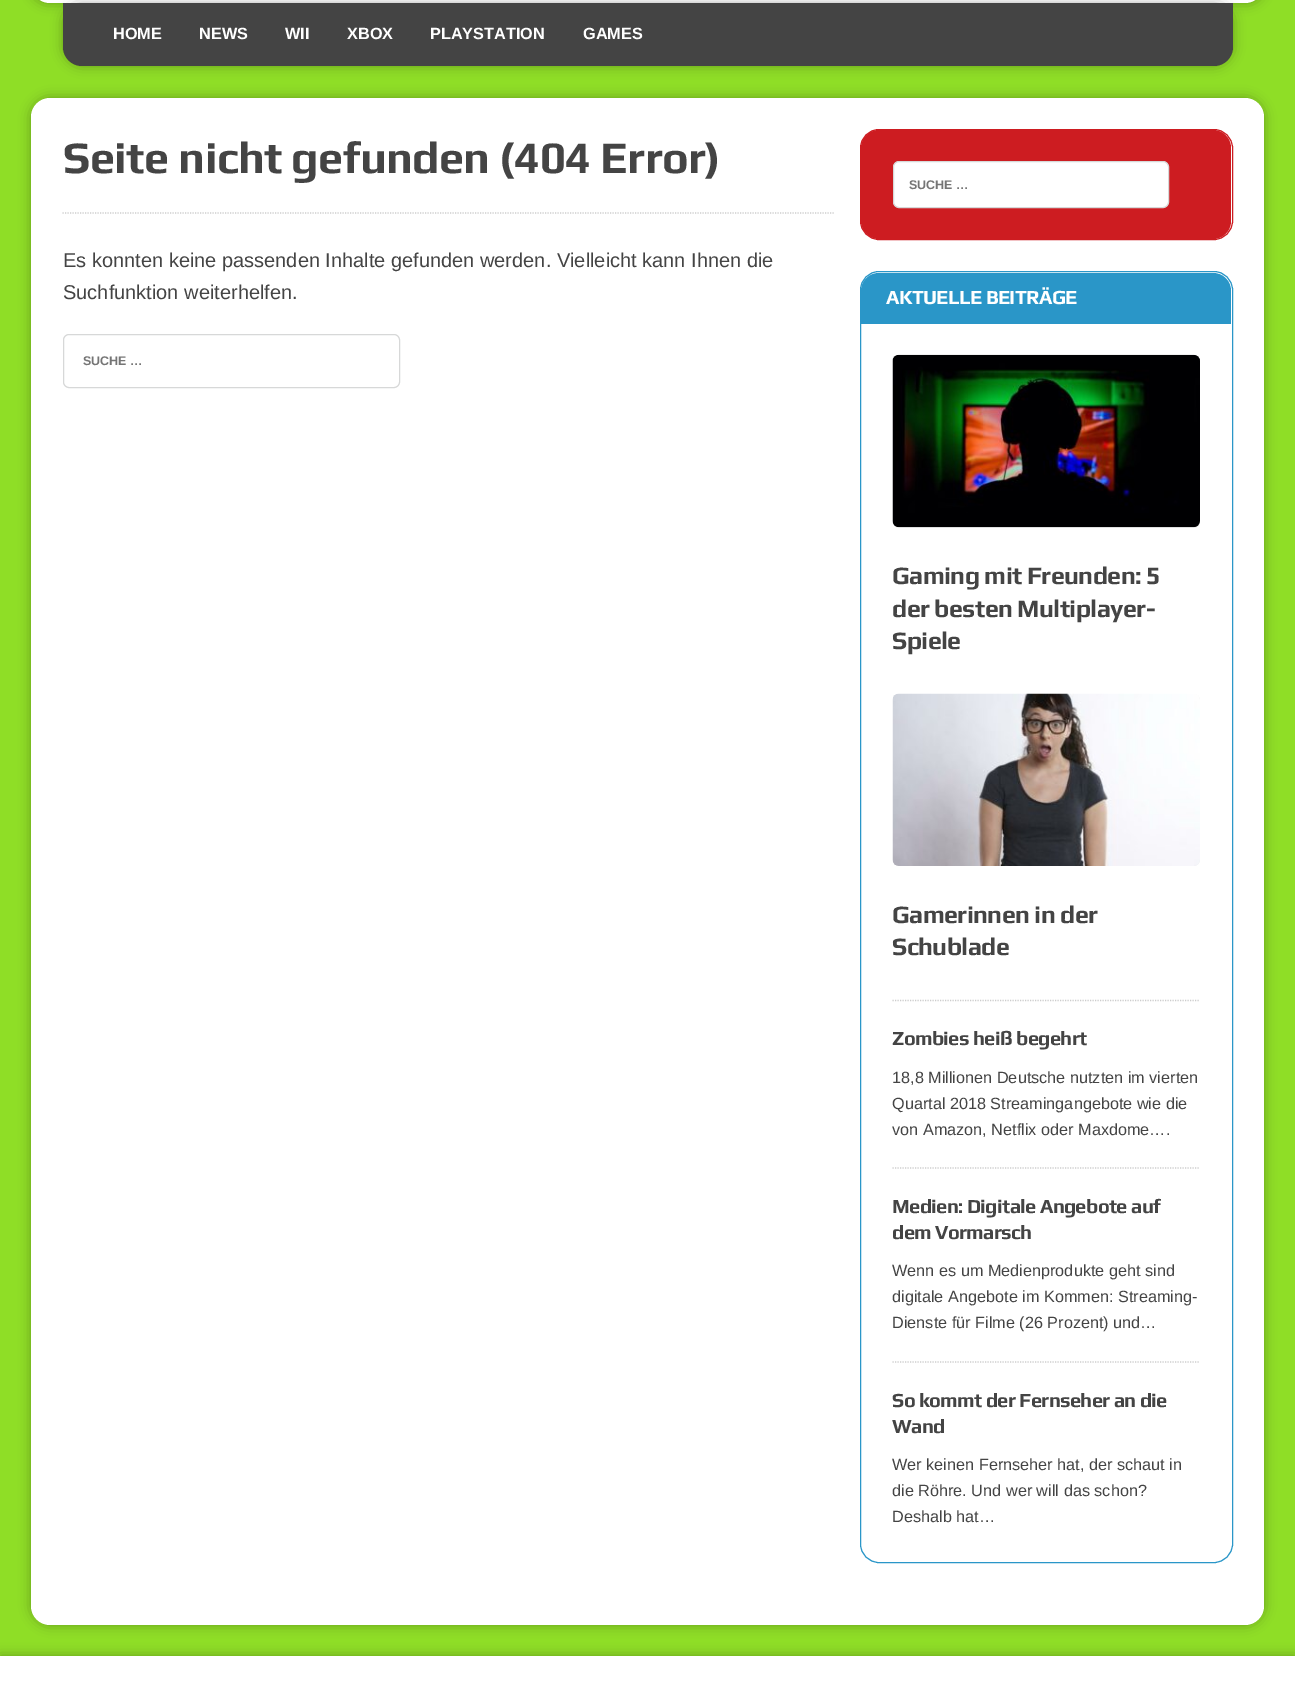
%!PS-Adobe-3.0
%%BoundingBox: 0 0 1295 1700
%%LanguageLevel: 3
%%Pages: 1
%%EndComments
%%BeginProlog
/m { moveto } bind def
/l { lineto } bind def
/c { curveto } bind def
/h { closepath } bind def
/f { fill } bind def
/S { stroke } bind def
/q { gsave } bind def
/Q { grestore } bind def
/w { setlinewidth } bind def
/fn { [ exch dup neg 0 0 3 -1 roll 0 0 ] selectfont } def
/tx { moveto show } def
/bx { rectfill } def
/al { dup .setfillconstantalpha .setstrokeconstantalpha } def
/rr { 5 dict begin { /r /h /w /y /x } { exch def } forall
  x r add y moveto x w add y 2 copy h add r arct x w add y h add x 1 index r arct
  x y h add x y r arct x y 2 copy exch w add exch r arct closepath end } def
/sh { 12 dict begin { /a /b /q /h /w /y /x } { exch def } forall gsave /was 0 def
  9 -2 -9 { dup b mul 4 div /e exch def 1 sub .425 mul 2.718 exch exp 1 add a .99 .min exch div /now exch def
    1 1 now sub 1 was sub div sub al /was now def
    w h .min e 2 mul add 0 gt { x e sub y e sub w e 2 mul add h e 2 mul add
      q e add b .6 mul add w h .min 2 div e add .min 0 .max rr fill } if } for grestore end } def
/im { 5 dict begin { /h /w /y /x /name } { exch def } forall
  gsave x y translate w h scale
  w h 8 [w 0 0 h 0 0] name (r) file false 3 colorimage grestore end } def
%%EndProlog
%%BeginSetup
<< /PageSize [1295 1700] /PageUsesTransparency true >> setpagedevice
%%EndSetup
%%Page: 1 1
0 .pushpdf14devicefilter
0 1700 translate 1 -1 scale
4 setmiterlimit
0.561 0.871 0.149 setrgbcolor
0 0 1295 1700 bx
0 setgray
31 -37 1233 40 19 6 0.3 sh
1 setgray
31 -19 m 1264 -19 l 1264 -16 l 1264 -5.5 1255.5 3 1245 3 c 50 3 l 39.5 3 31 -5.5 31 -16 c h f
0 setgray
63 3 1170 63 19 6 0.3 sh
0.267 setgray
63 3 m 1233 3 l 1233 47 l 1233 57.5 1224.5 66 1214 66 c 82 66 l 71.5 66 63 57.5 63 47 c h f
/LiberationSans-Bold 16.25 fn
1 setgray
(HOME) 113 39 tx
(NEWS) 199 39 tx
(WII) 285 39 tx
(XBOX) 347 39 tx
(PLAYSTATION) 430 39 tx
(GAMES) 583 39 tx
0 setgray
31 98 1233 1527 19 6 0.3 sh
1 setgray
31 98 1233 1527 19 rr f
0.8 setgray
1.2 w
[1.25 1.25] 0 setdash
62.5 213 m 834 213 l S
/Play-Bold 45 fn
0.267 setgray
63 173 m -0.6 0 (Seite nicht gefunden \(404 Error\)) ashow
/LiberationSans-Regular 20 fn
(Es konnten keine passenden Inhalte gefunden werden. Vielleicht kann Ihnen die) 63 267 tx
(Suchfunktion weiterhelfen.) 63 299 tx
0.843 0.847 0.847 setrgbcolor
1 w
[] 0 setdash
63.5 334.5 336 53 5.5 rr S
/LiberationSans-Bold 12.5 fn
0.459 setgray
(SUCHE …) 83 365 tx
0.804 0.11 0.129 setrgbcolor
860.5 129.5 372 110 18.5 rr S
861 130 370 109 18 rr f
1 setgray
893.5 161.5 275 46 5.5 rr q f Q
0.843 0.847 0.847 setrgbcolor
S
0.459 setgray
(SUCHE …) 909 189 tx
0.165 0.588 0.784 setrgbcolor
860.5 271.5 372 1291 18.5 rr S
879 273 m 1213 273 l 1223 273 1231 281 1231 291 c 1231 324 l 861 324 l 861 291 l 861 281 869 273 879 273 c h f
/Play-Bold 20 fn
1 setgray
886 304 m -0.6 0 (AKTUELLE BEITRÄGE) ashow
0.937 setgray
893 355 307 173 6 rr f
(image0.raw) 892 354 308 174 im
/Play-Bold 25 fn
0.267 setgray
892 584 m -0.6 0 (Gaming mit Freunden: 5) ashow
892 617 m -0.6 0 (der besten Multiplayer-) ashow
892 649 m -0.6 0 (Spiele) ashow
0.937 setgray
893 694 307 172 6 rr f
(image1.raw) 892 693 308 173 im
0.267 setgray
892 923 m -0.6 0 (Gamerinnen in der) ashow
892 955 m -0.6 0 (Schublade) ashow
0.8 setgray
1.2 w
[1.25 1.25] 0 setdash
892.5 1000.5 m 1200 1000.5 l S
/Play-Bold 20 fn
0.267 setgray
892 1045 m -0.6 0 (Zombies heiß begehrt) ashow
/LiberationSans-Regular 16.25 fn
(18,8 Millionen Deutsche nutzten im vierten) 892 1083 tx
(Quartal 2018 Streamingangebote wie die) 892 1109 tx
(von Amazon, Netflix oder Maxdome….) 892 1135 tx
0.8 setgray
892.5 1168 m 1200 1168 l S
/Play-Bold 20 fn
0.267 setgray
892 1213 m -0.6 0 (Medien: Digitale Angebote auf) ashow
892 1239 m -0.6 0 (dem Vormarsch) ashow
/LiberationSans-Regular 16.25 fn
(Wenn es um Medienprodukte geht sind) 892 1276 tx
(digitale Angebote im Kommen: Streaming-) 892 1302 tx
(Dienste für Filme \(26 Prozent\) und…) 892 1328 tx
0.8 setgray
892.5 1362 m 1200 1362 l S
/Play-Bold 20 fn
0.267 setgray
892 1407 m -0.6 0 (So kommt der Fernseher an die) ashow
892 1433 m -0.6 0 (Wand) ashow
/LiberationSans-Regular 16.25 fn
(Wer keinen Fernseher hat, der schaut in) 892 1470 tx
(die Röhre. Und wer will das schon?) 892 1496 tx
(Deshalb hat…) 892 1522 tx
0 setgray
0 1656 1295 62 0 6 0.3 sh
1 setgray
0 1656 1295 44 bx
.poppdf14devicefilter showpage
%%EOF
